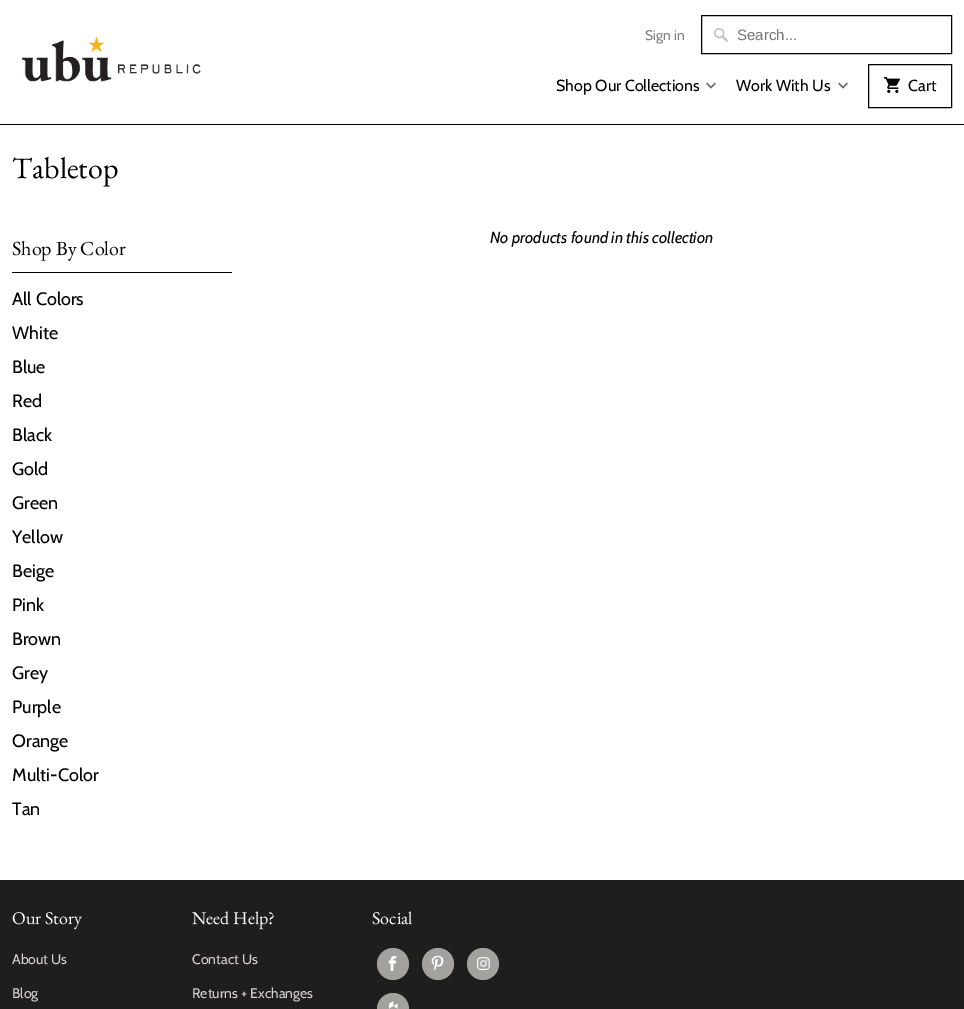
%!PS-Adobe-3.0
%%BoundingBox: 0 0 964 1009
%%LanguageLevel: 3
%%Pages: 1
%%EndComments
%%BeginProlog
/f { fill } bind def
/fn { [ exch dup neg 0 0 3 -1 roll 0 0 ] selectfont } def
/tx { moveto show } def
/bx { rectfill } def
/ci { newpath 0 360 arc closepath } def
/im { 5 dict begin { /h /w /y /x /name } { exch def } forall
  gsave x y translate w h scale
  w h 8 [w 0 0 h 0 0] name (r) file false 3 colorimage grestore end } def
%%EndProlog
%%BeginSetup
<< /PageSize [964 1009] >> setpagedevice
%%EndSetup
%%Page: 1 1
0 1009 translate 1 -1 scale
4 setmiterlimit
1 setgray
0 0 964 1009 bx
0 setgray
0 124 964 1 bx
(image0.raw) 22 36 179 46 im
/Cabin-Regular 14 fn
0.51 0.506 0.506 setrgbcolor
(Sign in) 645 40 tx
(image1.raw) 714 28 14 14 im
0 setgray
701.5 15.5 250 38 rectstroke
/LiberationSans-Regular 15 fn
0.459 setgray
(Search...) 737 40 tx
/Cabin-Regular 16 fn
0 setgray
(Shop Our Collections) 556 91 tx
(image2.raw) 706 82 10 7 im
(Work With Us) 736 91 tx
(image2.raw) 838 82 10 7 im
868.5 64.5 83 43 rectstroke
(image3.raw) 884 77 16 16 im
(Cart) 908 91 tx
/EBGaramond-Regular 30 fn
(Tabletop) 12 178 tx
12 272 220 1 bx
/EBGaramond-Regular 20 fn
(Shop By Color) 12 255 tx
/Cabin-Regular 18 fn
(All Colors) 12 305 tx
(White) 12 339 tx
(Blue) 12 373 tx
(Red) 12 407 tx
(Black) 12 441 tx
(Gold) 12 475 tx
(Green) 12 509 tx
(Yellow) 12 543 tx
(Beige) 12 577 tx
(Pink) 12 611 tx
(Brown) 12 645 tx
(Grey) 12 679 tx
(Purple) 12 713 tx
(Orange) 12 747 tx
(Multi-Color) 12 781 tx
(Tan) 12 815 tx
/Cabin-Italic 16 fn
(No products found in this collection) 490 243 tx
0.118 setgray
0 880 964 129 bx
/EBGaramond-Regular 18 fn
1 setgray
(Our Story) 12 924 tx
/Cabin-Regular 14 fn
0.839 0.824 0.824 setrgbcolor
(About Us) 12 964 tx
(Blog) 12 998 tx
/EBGaramond-Regular 18 fn
1 setgray
(Need Help?) 192 924 tx
/Cabin-Regular 14 fn
0.839 0.824 0.824 setrgbcolor
(Contact Us) 192 964 tx
(Returns + Exchanges) 192 998 tx
/EBGaramond-Regular 18 fn
1 setgray
(Social) 372 924 tx
0.635 0.631 0.62 setrgbcolor
393 964 16 ci f
(image4.raw) 388 955 9 16 im
438 964 16 ci f
(image5.raw) 431 955 13 16 im
483 964 16 ci f
(image6.raw) 477 957 13 13 im
393 1009 16 ci f
(image7.raw) 389 1001 9 8 im
showpage
%%EOF
